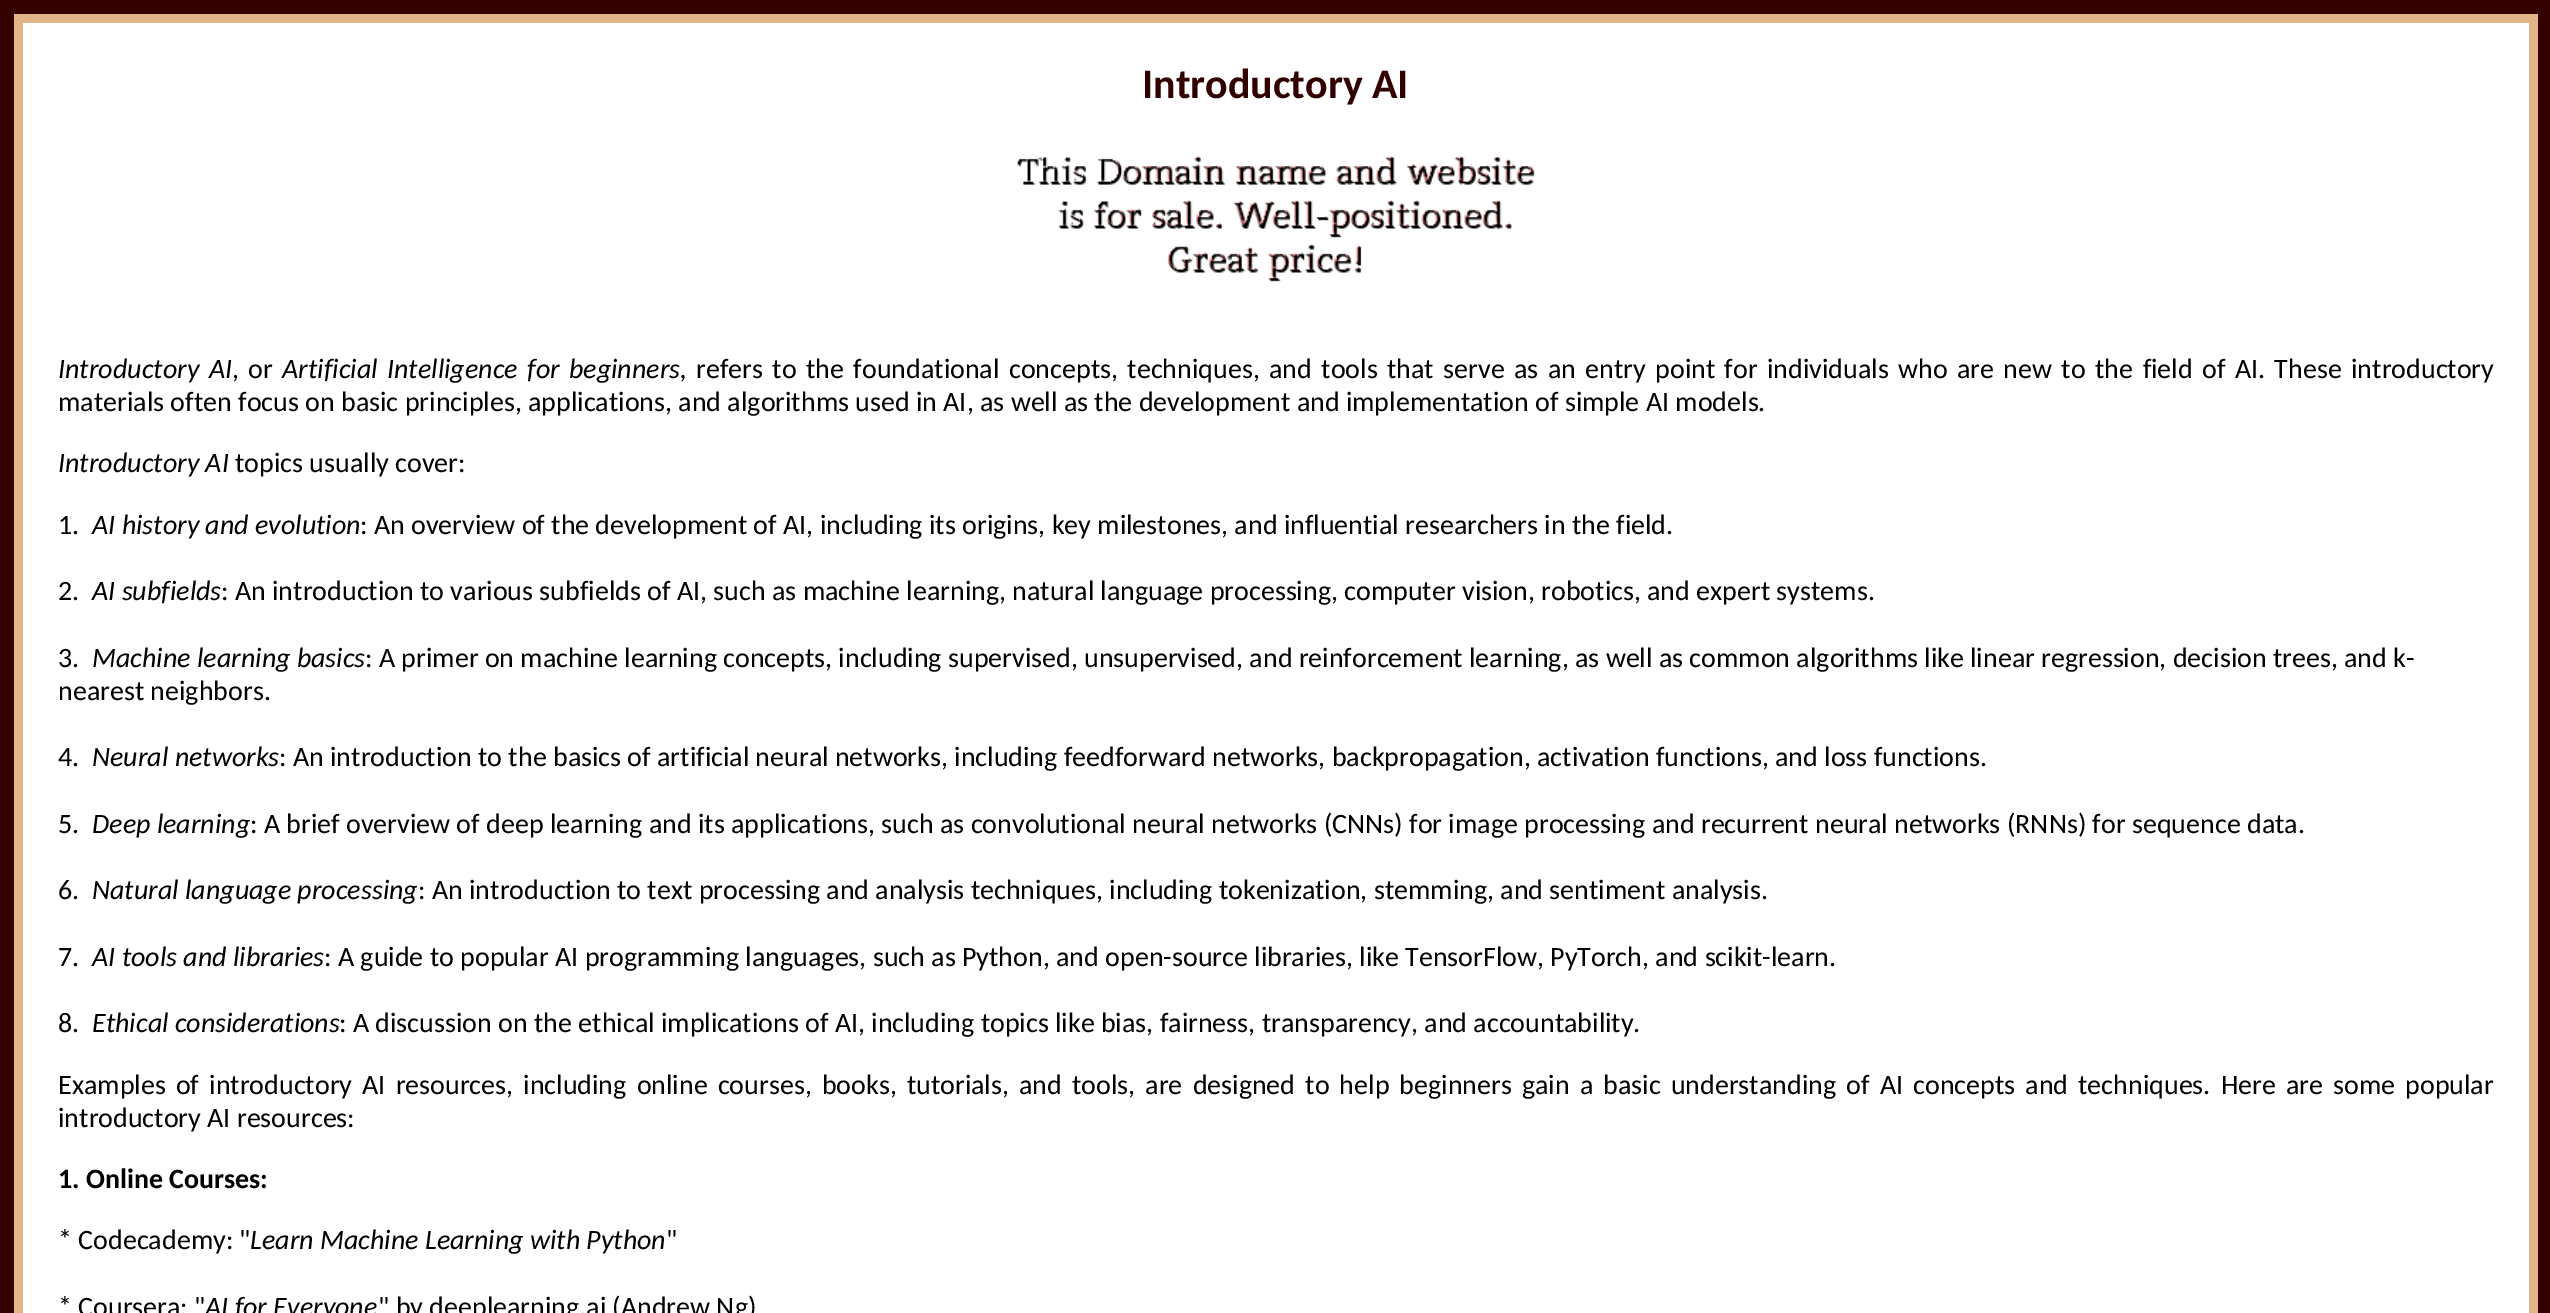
%!PS-Adobe-3.0
%%BoundingBox: 0 0 2550 1313
%%LanguageLevel: 3
%%Pages: 1
%%EndComments
%%BeginProlog
/m { moveto } bind def
/fn { [ exch dup neg 0 0 3 -1 roll 0 0 ] selectfont } def
/tx { moveto show } def
/bx { rectfill } def
/im { 5 dict begin { /h /w /y /x /name } { exch def } forall
  gsave x y translate w h scale
  w h 8 [w 0 0 h 0 0] name (r) file false 3 colorimage grestore end } def
%%EndProlog
%%BeginSetup
<< /PageSize [2550 1313] >> setpagedevice
%%EndSetup
%%Page: 1 1
0 1313 translate 1 -1 scale
4 setmiterlimit
0.2 0 0 setrgbcolor
0 0 2550 1313 bx
0.886 0.71 0.533 setrgbcolor
14 14 2524 1299 bx
1 setgray
23 23 2506 1290 bx
/Carlito-Bold 42 fn
0.2 0 0 setrgbcolor
(Introductory AI) 1142 98 tx
(image0.raw) 1017 156 518 126 im
/Carlito-Italic 28 fn
0 setgray
58 378 m 3.1 0 32 (Introductory AI) widthshow
/Carlito-Regular 28 fn
232 378 m 3.1 0 32 (, or) widthshow
/Carlito-Italic 28 fn
282 378 m 3.1 0 32 (Artificial Intelligence for beginners,) widthshow
/Carlito-Regular 28 fn
696 378 m 3.1 0 32 (refers to the foundational concepts, techniques, and tools that serve as an entry point for individuals who are new to the field of AI. These introductory) widthshow
(materials often focus on basic principles, applications, and algorithms used in AI, as well as the development and implementation of simple AI models.) 58 411 tx
/Carlito-Italic 28 fn
(Introductory AI) 58 472 tx
/Carlito-Regular 28 fn
(topics usually cover:) 235 472 tx
(1.) 58 534 tx
/Carlito-Italic 28 fn
(AI history and evolution) 92 534 tx
/Carlito-Regular 28 fn
(: An overview of the development of AI, including its origins, key milestones, and influential researchers in the field.) 360 534 tx
(2.) 58 600 tx
/Carlito-Italic 28 fn
(AI subfields) 92 600 tx
/Carlito-Regular 28 fn
(: An introduction to various subfields of AI, such as machine learning, natural language processing, computer vision, robotics, and expert systems.) 221 600 tx
(3.) 58 667 tx
/Carlito-Italic 28 fn
(Machine learning basics) 92 667 tx
/Carlito-Regular 28 fn
(: A primer on machine learning concepts, including supervised, unsupervised, and reinforcement learning, as well as common algorithms like linear regression, decision trees, and k-) 365 667 tx
(nearest neighbors.) 58 700 tx
(4.) 58 766 tx
/Carlito-Italic 28 fn
(Neural networks) 92 766 tx
/Carlito-Regular 28 fn
(: An introduction to the basics of artificial neural networks, including feedforward networks, backpropagation, activation functions, and loss functions.) 279 766 tx
(5.) 58 833 tx
/Carlito-Italic 28 fn
(Deep learning) 92 833 tx
/Carlito-Regular 28 fn
(: A brief overview of deep learning and its applications, such as convolutional neural networks \(CNNs\) for image processing and recurrent neural networks \(RNNs\) for sequence data.) 250 833 tx
(6.) 58 899 tx
/Carlito-Italic 28 fn
(Natural language processing) 92 899 tx
/Carlito-Regular 28 fn
(: An introduction to text processing and analysis techniques, including tokenization, stemming, and sentiment analysis.) 418 899 tx
(7.) 58 966 tx
/Carlito-Italic 28 fn
(AI tools and libraries) 92 966 tx
/Carlito-Regular 28 fn
(: A guide to popular AI programming languages, such as Python, and open-source libraries, like TensorFlow, PyTorch, and scikit-learn.) 324 966 tx
(8.) 58 1032 tx
/Carlito-Italic 28 fn
(Ethical considerations) 92 1032 tx
/Carlito-Regular 28 fn
(: A discussion on the ethical implications of AI, including topics like bias, fairness, transparency, and accountability.) 339 1032 tx
58 1094 m 3.8 0 32 (Examples of introductory AI resources, including online courses, books, tutorials, and tools, are designed to help beginners gain a basic understanding of AI concepts and techniques. Here are some popular) widthshow
(introductory AI resources:) 58 1127 tx
/Carlito-Bold 28 fn
(1. Online Courses:) 58 1188 tx
/Carlito-Regular 28 fn
(* Codecademy: ") 58 1249 tx
/Carlito-Italic 28 fn
(Learn Machine Learning with Python) 250 1249 tx
/Carlito-Regular 28 fn
(") 666 1249 tx
(* Coursera: ") 58 1316 tx
/Carlito-Italic 28 fn
(AI for Everyone) 205 1316 tx
/Carlito-Regular 28 fn
(" by deeplearning.ai \(Andrew Ng\)) 378 1316 tx
showpage
%%EOF
